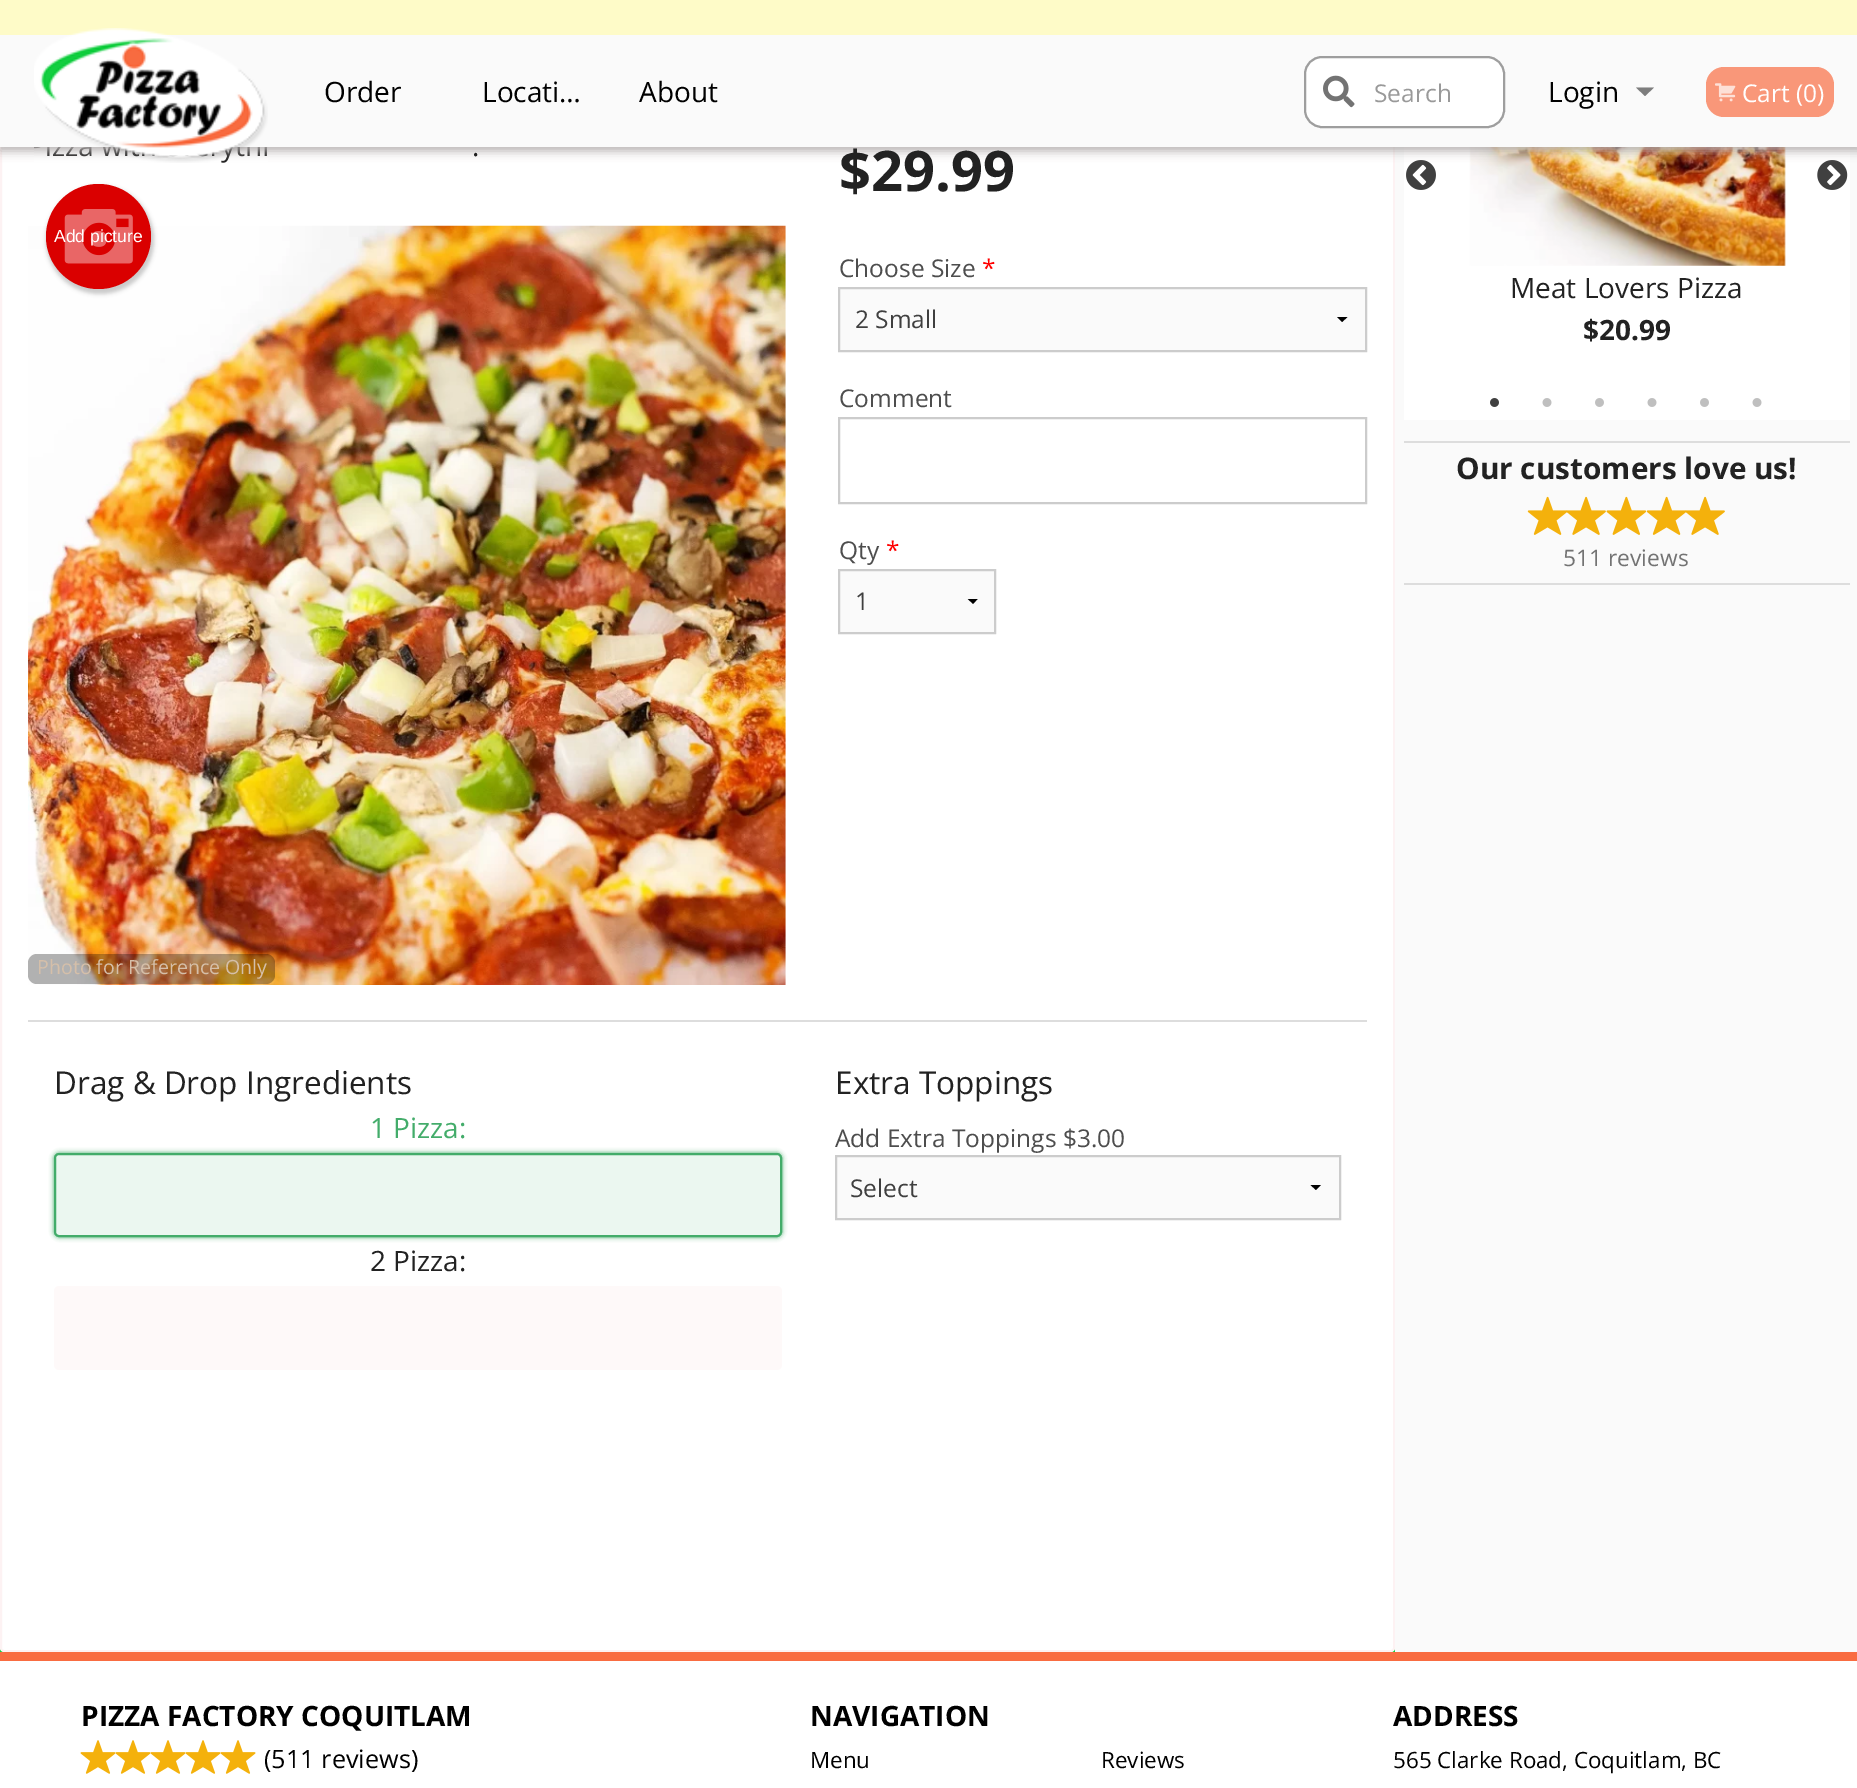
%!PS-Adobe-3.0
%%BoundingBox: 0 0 1857 1788
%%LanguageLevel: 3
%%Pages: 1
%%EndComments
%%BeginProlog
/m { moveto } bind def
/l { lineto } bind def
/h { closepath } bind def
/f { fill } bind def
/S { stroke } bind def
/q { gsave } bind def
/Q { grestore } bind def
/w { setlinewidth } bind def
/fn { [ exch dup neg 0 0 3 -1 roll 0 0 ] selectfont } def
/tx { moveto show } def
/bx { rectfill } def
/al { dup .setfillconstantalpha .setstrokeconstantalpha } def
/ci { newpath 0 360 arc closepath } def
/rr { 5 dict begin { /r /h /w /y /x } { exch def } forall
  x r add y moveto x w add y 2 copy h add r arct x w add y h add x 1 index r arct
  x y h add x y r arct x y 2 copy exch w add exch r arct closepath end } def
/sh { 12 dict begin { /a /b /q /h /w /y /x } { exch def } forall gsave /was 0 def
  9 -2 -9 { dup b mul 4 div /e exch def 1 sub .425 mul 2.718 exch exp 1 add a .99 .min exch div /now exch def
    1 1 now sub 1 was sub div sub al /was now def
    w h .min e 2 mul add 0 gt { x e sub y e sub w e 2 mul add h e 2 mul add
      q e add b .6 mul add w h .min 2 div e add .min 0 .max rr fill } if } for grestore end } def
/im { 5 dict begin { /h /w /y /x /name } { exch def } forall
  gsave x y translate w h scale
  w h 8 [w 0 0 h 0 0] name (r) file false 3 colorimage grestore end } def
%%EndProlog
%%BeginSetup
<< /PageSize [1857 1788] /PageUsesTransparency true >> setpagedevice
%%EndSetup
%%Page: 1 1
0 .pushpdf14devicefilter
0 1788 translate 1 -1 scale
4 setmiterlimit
1 setgray
0 0 1857 1788 bx
0.075 0.808 0.255 setrgbcolor
0 1643 m 0 1652 l 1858 1652 l 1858 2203 l 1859 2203 l 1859 1643 l h f
1 setgray
1 -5 1393 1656 3 rr q f Q
0.992 0.949 0.953 setrgbcolor
2 w
S
0.98 setgray
1395 147 462 1505 bx
1 setgray
1404 147 446 273 bx
(image5.raw) 1406 160 30 30 im
(image6.raw) 1817 160 31 30 im
(image7.raw) 1469 147 317 119 im
0.702 0.682 0.682 setrgbcolor
0 4 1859 147 0 5 1 sh
0.98 setgray
0 35 1857 112 bx
0.996 0.984 0.784 setrgbcolor
0 0 1857 35 bx
(image0.raw) 34 28 234 135 im
/OpenSans-Regular 28 fn
0 setgray
(Order) 324 102 tx
(Locati…) 482 102 tx
(About) 639 102 tx
1 setgray
1305 57 199 70 17 rr q f Q
0.62 setgray
S
(image1.raw) 1323 75 32 33 im
/OpenSans-Regular 24.5 fn
0.6 setgray
(Search) 1374 102 tx
/OpenSans-Regular 28 fn
0 setgray
(Login) 1548 102 tx
0.49 setgray
1636 87.5 m 1654 87.5 l 1645 96 l h f
0.976 0.592 0.475 setrgbcolor
1706 67 128 50 18 rr f
(image2.raw) 1715 83 21 19 im
/OpenSans-Regular 24.5 fn
1 setgray
(Cart \(0\)) 1742 102 tx
/OpenSans-Regular 28 fn
0.133 setgray
(.) 472 156 tx
(image3.raw) 28 225 758 760 im
0 setgray
46 186 108 108 54 2 0.2 sh
0.855 0 0 setrgbcolor
98.5 236.5 52.5 ci f
(image4.raw) 64 209 69 55 im
/LiberationSans-Regular 17.5 fn
1 setgray
(Add picture) 54 242 tx
0.3 al
0 setgray
28 954 247 30 9 rr f
/OpenSans-Regular 19.6 fn
1 al
0.835 0.749 0.663 setrgbcolor
(Photo for Reference Only) 37 974 tx
/OpenSans-Bold 56 fn
0.133 setgray
($29.99) 839 191 tx
/OpenSans-Regular 24.5 fn
0.302 setgray
(Choose Size) 839 277 tx
1 0 0 setrgbcolor
(*) 982 277 tx
0.98 setgray
840 289 525 61 bx
0 setgray
1347.5 317 m 1342 322 l 1337 317 l h f
0.8 setgray
839 288 527 63 rectstroke
0.247 setgray
(2 Small) 855 328 tx
0.302 setgray
(Comment) 839 407 tx
0.8 setgray
839 418 527 85 rectstroke
0.302 setgray
(Qty) 839 559 tx
1 0 0 setrgbcolor
(*) 886 559 tx
0.98 setgray
840 571 154 61 bx
q
952 599 42 5 rectclip
0 setgray
978 598.5 m 973 604 l 967.5 598.5 l h f
Q
0.8 setgray
839 570 156 63 rectstroke
0.247 setgray
(1) 855 610 tx
0.867 setgray
28 1020 1339 2 bx
/OpenSans-Regular 31.5 fn
0.133 setgray
(Drag & Drop Ingredients) 54 1094 tx
/OpenSans-Regular 28 fn
0.263 0.675 0.416 setrgbcolor
(1 Pizza:) 370 1138 tx
54 1153 728 84 5 2.5 1 sh
0.922 0.969 0.941 setrgbcolor
55 1154 726 82 4 rr q f Q
0.263 0.675 0.416 setrgbcolor
S
0.133 setgray
(2 Pizza:) 370 1271 tx
0.996 0.976 0.976 setrgbcolor
54 1286 728 84 5 rr f
/OpenSans-Regular 31.5 fn
0.133 setgray
(Extra Toppings) 835 1094 tx
/OpenSans-Regular 24.5 fn
0.302 setgray
(Add Extra Toppings $3.00) 835 1147 tx
0.98 setgray
837 1157 502 61 bx
0 setgray
1321 1185 m 1316 1190 l 1310.5 1185 l h f
0.8 setgray
836 1156 504 63 rectstroke
0.247 setgray
(Select) 850 1197 tx
/OpenSans-Regular 28 fn
0.133 setgray
(Meat Lovers Pizza) 1510 298 tx
/OpenSans-Bold 28 fn
($20.99) 1583 340 tx
(image8.raw) 1490 398 9 9 im
(image9.raw) 1542 398 10 9 im
(image10.raw) 1595 398 9 9 im
(image9.raw) 1647 398 10 9 im
(image10.raw) 1700 398 9 9 im
(image9.raw) 1752 398 10 9 im
0.867 setgray
1404 441 446 2 bx
/OpenSans-Bold 29.75 fn
0.133 setgray
(Our customers love us!) 1456 479 tx
(image11.raw) 1527 496 41 39 im
(image12.raw) 1566 496 40 39 im
(image13.raw) 1606 496 41 39 im
(image14.raw) 1646 496 41 39 im
(image12.raw) 1685 496 40 39 im
/OpenSans-Regular 22.75 fn
0.451 setgray
(511 reviews) 1563 566 tx
0.867 setgray
1404 583 446 2 bx
0.976 0.424 0.255 setrgbcolor
0 1652 1857 9 bx
/OpenSans-Bold 28 fn
0 setgray
(PIZZA FACTORY COQUITLAM) 81 1726 tx
(image15.raw) 80 1740 36 34 im
(image16.raw) 115 1740 36 34 im
(image16.raw) 150 1740 36 34 im
(image16.raw) 185 1740 36 34 im
(image16.raw) 220 1740 36 34 im
/OpenSans-Regular 25.25 fn
(\(511 reviews\)) 264 1768 tx
/OpenSans-Bold 28 fn
(NAVIGATION) 810 1726 tx
/OpenSans-Regular 22.4 fn
(Menu) 810 1768 tx
(Reviews) 1101 1768 tx
/OpenSans-Bold 28 fn
(ADDRESS) 1393 1726 tx
/OpenSans-Regular 22.4 fn
(565 Clarke Road, Coquitlam, BC) 1393 1768 tx
.poppdf14devicefilter showpage
%%EOF
